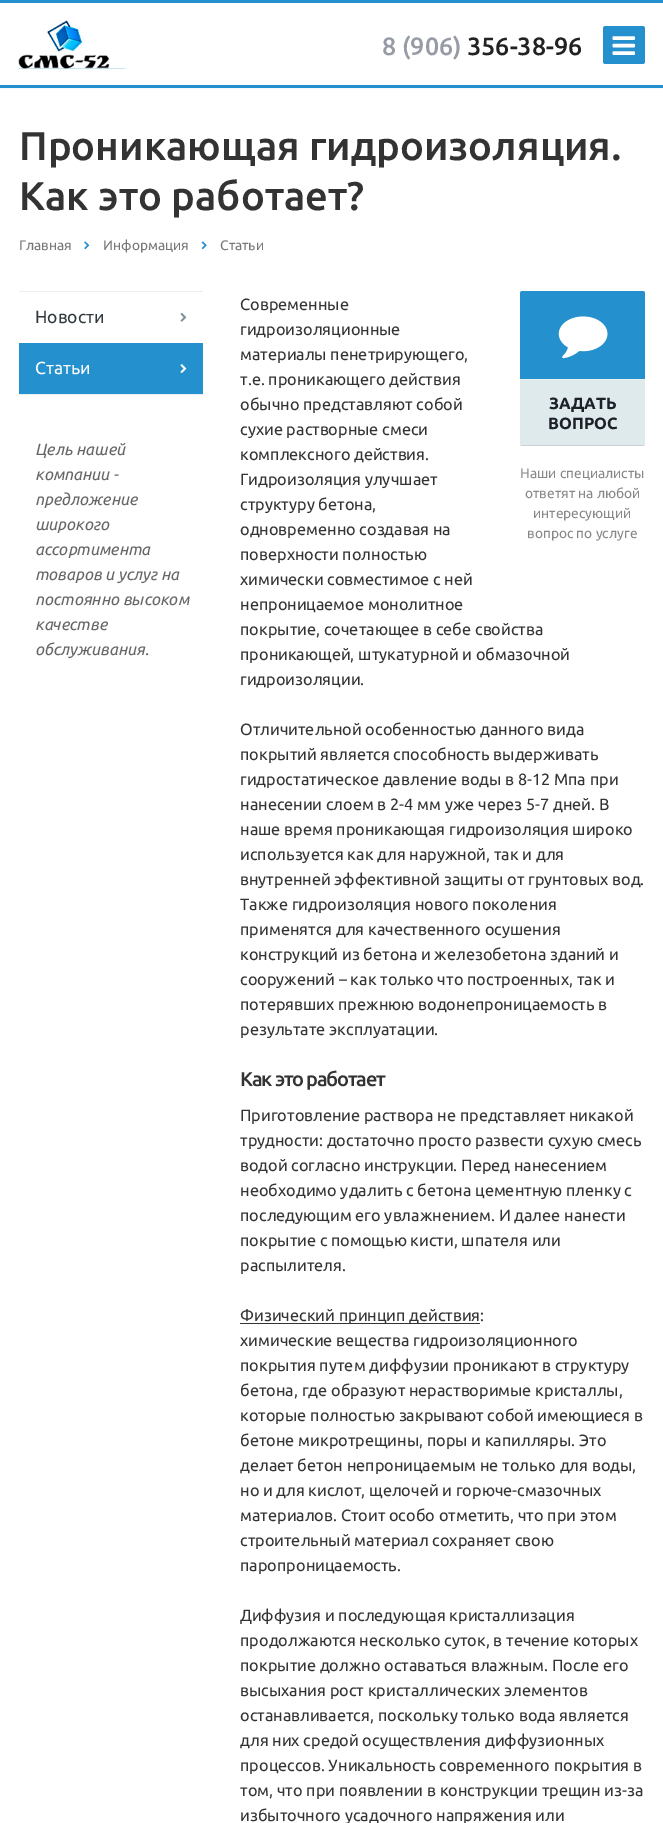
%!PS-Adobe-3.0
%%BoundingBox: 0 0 663 1823
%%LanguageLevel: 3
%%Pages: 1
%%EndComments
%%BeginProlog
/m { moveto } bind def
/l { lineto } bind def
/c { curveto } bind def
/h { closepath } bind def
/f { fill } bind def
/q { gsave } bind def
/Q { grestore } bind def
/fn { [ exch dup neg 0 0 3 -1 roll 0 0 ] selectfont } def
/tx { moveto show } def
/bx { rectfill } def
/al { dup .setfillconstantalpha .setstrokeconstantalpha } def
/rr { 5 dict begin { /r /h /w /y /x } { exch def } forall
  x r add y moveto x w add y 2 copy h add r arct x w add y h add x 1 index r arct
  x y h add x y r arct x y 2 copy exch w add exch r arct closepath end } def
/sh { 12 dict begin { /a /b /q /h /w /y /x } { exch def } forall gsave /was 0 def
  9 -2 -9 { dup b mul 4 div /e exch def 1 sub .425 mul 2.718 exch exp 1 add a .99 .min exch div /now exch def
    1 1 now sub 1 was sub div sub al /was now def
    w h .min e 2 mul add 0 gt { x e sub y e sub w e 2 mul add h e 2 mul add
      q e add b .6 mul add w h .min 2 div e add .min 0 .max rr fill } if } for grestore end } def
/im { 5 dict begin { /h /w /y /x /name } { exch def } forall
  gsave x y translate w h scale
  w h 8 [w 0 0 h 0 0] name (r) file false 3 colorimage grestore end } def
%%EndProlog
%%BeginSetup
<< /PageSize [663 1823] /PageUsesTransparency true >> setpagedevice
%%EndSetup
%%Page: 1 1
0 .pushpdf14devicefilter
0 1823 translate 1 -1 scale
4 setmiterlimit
1 setgray
0 0 663 1823 bx
q
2 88 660 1 rectclip
0 setgray
0 1 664 85 0 3 0.14 sh
Q
0.145 0.565 0.808 setrgbcolor
0 0 663 3 bx
(image0.raw) 18 20 107 49 im
/Ubuntu-Medium 25 fn
0.588 0.608 0.647 setrgbcolor
(8 \(906\)) 382 55 tx
0.133 setgray
(356-38-96) 467 55 tx
0.145 0.565 0.808 setrgbcolor
603 26 42 38 2.5 rr f
(image1.raw) 612 36 23 19 im
0 85 663 3 bx
/Ubuntu-Medium 40 fn
0.2 setgray
(Проникающая гидроизоляция.) 19 160 tx
(Как это работает?) 19 210 tx
/Ubuntu-Regular 13.75 fn
0.467 setgray
(Главная) 19 250 tx
(image2.raw) 84 241 6 9 im
(Информация) 103 250 tx
(image3.raw) 201 241 6 9 im
(Статьи) 220 250 tx
0.922 0.933 0.945 setrgbcolor
19 394 184 1 bx
19 291 184 1 bx
/Ubuntu-Regular 17.5 fn
0.184 0.22 0.239 setrgbcolor
(Новости) 35 323 tx
(image4.raw) 180 312 7 10 im
0.145 0.565 0.808 setrgbcolor
19 343 184 51 bx
1 setgray
(Статьи) 35 374 tx
(image5.raw) 180 364 7 9 im
/Ubuntu-Italic 16.25 fn
0.4 setgray
(Цель нашей) 35 455 tx
(компании -) 35 480 tx
(предложение) 35 505 tx
(широкого) 35 530 tx
(ассортимента) 35 555 tx
(товаров и услуг на) 35 580 tx
(постоянно высоком) 35 605 tx
(качестве) 35 630 tx
(обслуживания.) 35 655 tx
/Ubuntu-Regular 16.25 fn
0.2 setgray
(Современные) 240 310 tx
(гидроизоляционные) 240 335 tx
(материалы пенетрирующего,) 240 360 tx
(т.е. проникающего действия) 240 385 tx
(обычно представляют собой) 240 410 tx
(сухие растворные смеси) 240 435 tx
(комплексного действия.) 240 460 tx
(Гидроизоляция улучшает) 240 485 tx
(структуру бетона,) 240 510 tx
(одновременно создавая на) 240 535 tx
(поверхности полностью) 240 560 tx
(химически совместимое с ней) 240 585 tx
(непроницаемое монолитное) 240 610 tx
(покрытие, сочетающее в себе свойства) 240 635 tx
(проникающей, штукатурной и обмазочной) 240 660 tx
(гидроизоляции.) 240 685 tx
(Отличительной особенностью данного вида) 240 735 tx
(покрытий является способность выдерживать) 240 760 tx
(гидростатическое давление воды в 8-12 Мпа при) 240 785 tx
(нанесении слоем в 2-4 мм уже через 5-7 дней. В) 240 810 tx
(наше время проникающая гидроизоляция широко) 240 835 tx
(используется как для наружной, так и для) 240 860 tx
(внутренней эффективной защиты от грунтовых вод.) 240 885 tx
(Также гидроизоляция нового поколения) 240 910 tx
(применятся для качественного осушения) 240 935 tx
(конструкций из бетона и железобетона зданий и) 240 960 tx
(сооружений – как только что построенных, так и) 240 985 tx
(потерявших прежнюю водонепроницаемость в) 240 1010 tx
(результате эксплуатации.) 240 1035 tx
/Ubuntu-Medium 20 fn
240 1086 m -1.25 0 (Как это работает) ashow
/Ubuntu-Regular 16.25 fn
(Приготовление раствора не представляет никакой) 240 1121 tx
(трудности: достаточно просто развести сухую смесь) 240 1146 tx
(водой согласно инструкции. Перед нанесением) 240 1171 tx
(необходимо удалить с бетона цементную пленку с) 240 1196 tx
(последующим его увлажнением. И далее нанести) 240 1221 tx
(покрытие с помощью кисти, шпателя или) 240 1246 tx
(распылителя.) 240 1271 tx
240 1323 240 1 bx
(Физический принцип действия:) 240 1321 tx
(химические вещества гидроизоляционного) 240 1346 tx
(покрытия путем диффузии проникают в структуру) 240 1371 tx
(бетона, где образуют нерастворимые кристаллы,) 240 1396 tx
(которые полностью закрывают собой имеющиеся в) 240 1421 tx
(бетоне микротрещины, поры и капилляры. Это) 240 1446 tx
(делает бетон непроницаемым не только для воды,) 240 1471 tx
(но и для кислот, щелочей и горюче-смазочных) 240 1496 tx
(материалов. Стоит особо отметить, что при этом) 240 1521 tx
(строительный материал сохраняет свою) 240 1546 tx
(паропроницаемость.) 240 1571 tx
(Диффузия и последующая кристаллизация) 240 1621 tx
(продолжаются несколько суток, в течение которых) 240 1646 tx
(покрытие должно оставаться влажным. После его) 240 1671 tx
(высыхания рост кристаллических элементов) 240 1696 tx
(останавливается, поскольку только вода является) 240 1721 tx
(для них средой осуществления диффузионных) 240 1746 tx
(процессов. Уникальность современного покрытия в) 240 1771 tx
(том, что при появлении в конструкции трещин из-за) 240 1796 tx
(избыточного усадочного напряжения или) 240 1821 tx
0.145 0.565 0.808 setrgbcolor
522.5 291 m 642.5 291 l 644 291 645 292 645 293.5 c 645 379 l 520 379 l 520 293.5 l 520 292 521 291 522.5 291 c h f
(image6.raw) 558 316 50 43 im
0.875 0.918 0.929 setrgbcolor
520 379 m 645 379 l 645 443.5 l 645 445 644 446 642.5 446 c 522.5 446 l 521 446 520 445 520 443.5 c h f
0.918 0.945 0.953 setrgbcolor
520 379 125 1 bx
0.784 0.824 0.835 setrgbcolor
645 445 m 643 446 l 542 446 l 522 446 l 520 445 l h f
/Ubuntu-Bold 16.25 fn
0.114 0.125 0.161 setrgbcolor
(ЗАДАТЬ) 549 409 tx
(ВОПРОС) 548 429 tx
/Ubuntu-Regular 13.75 fn
0.533 setgray
(Наши специалисты) 520 478 tx
(ответят на любой) 525 498 tx
(интересующий) 533 518 tx
(вопрос по услуге) 527 538 tx
.poppdf14devicefilter showpage
%%EOF
